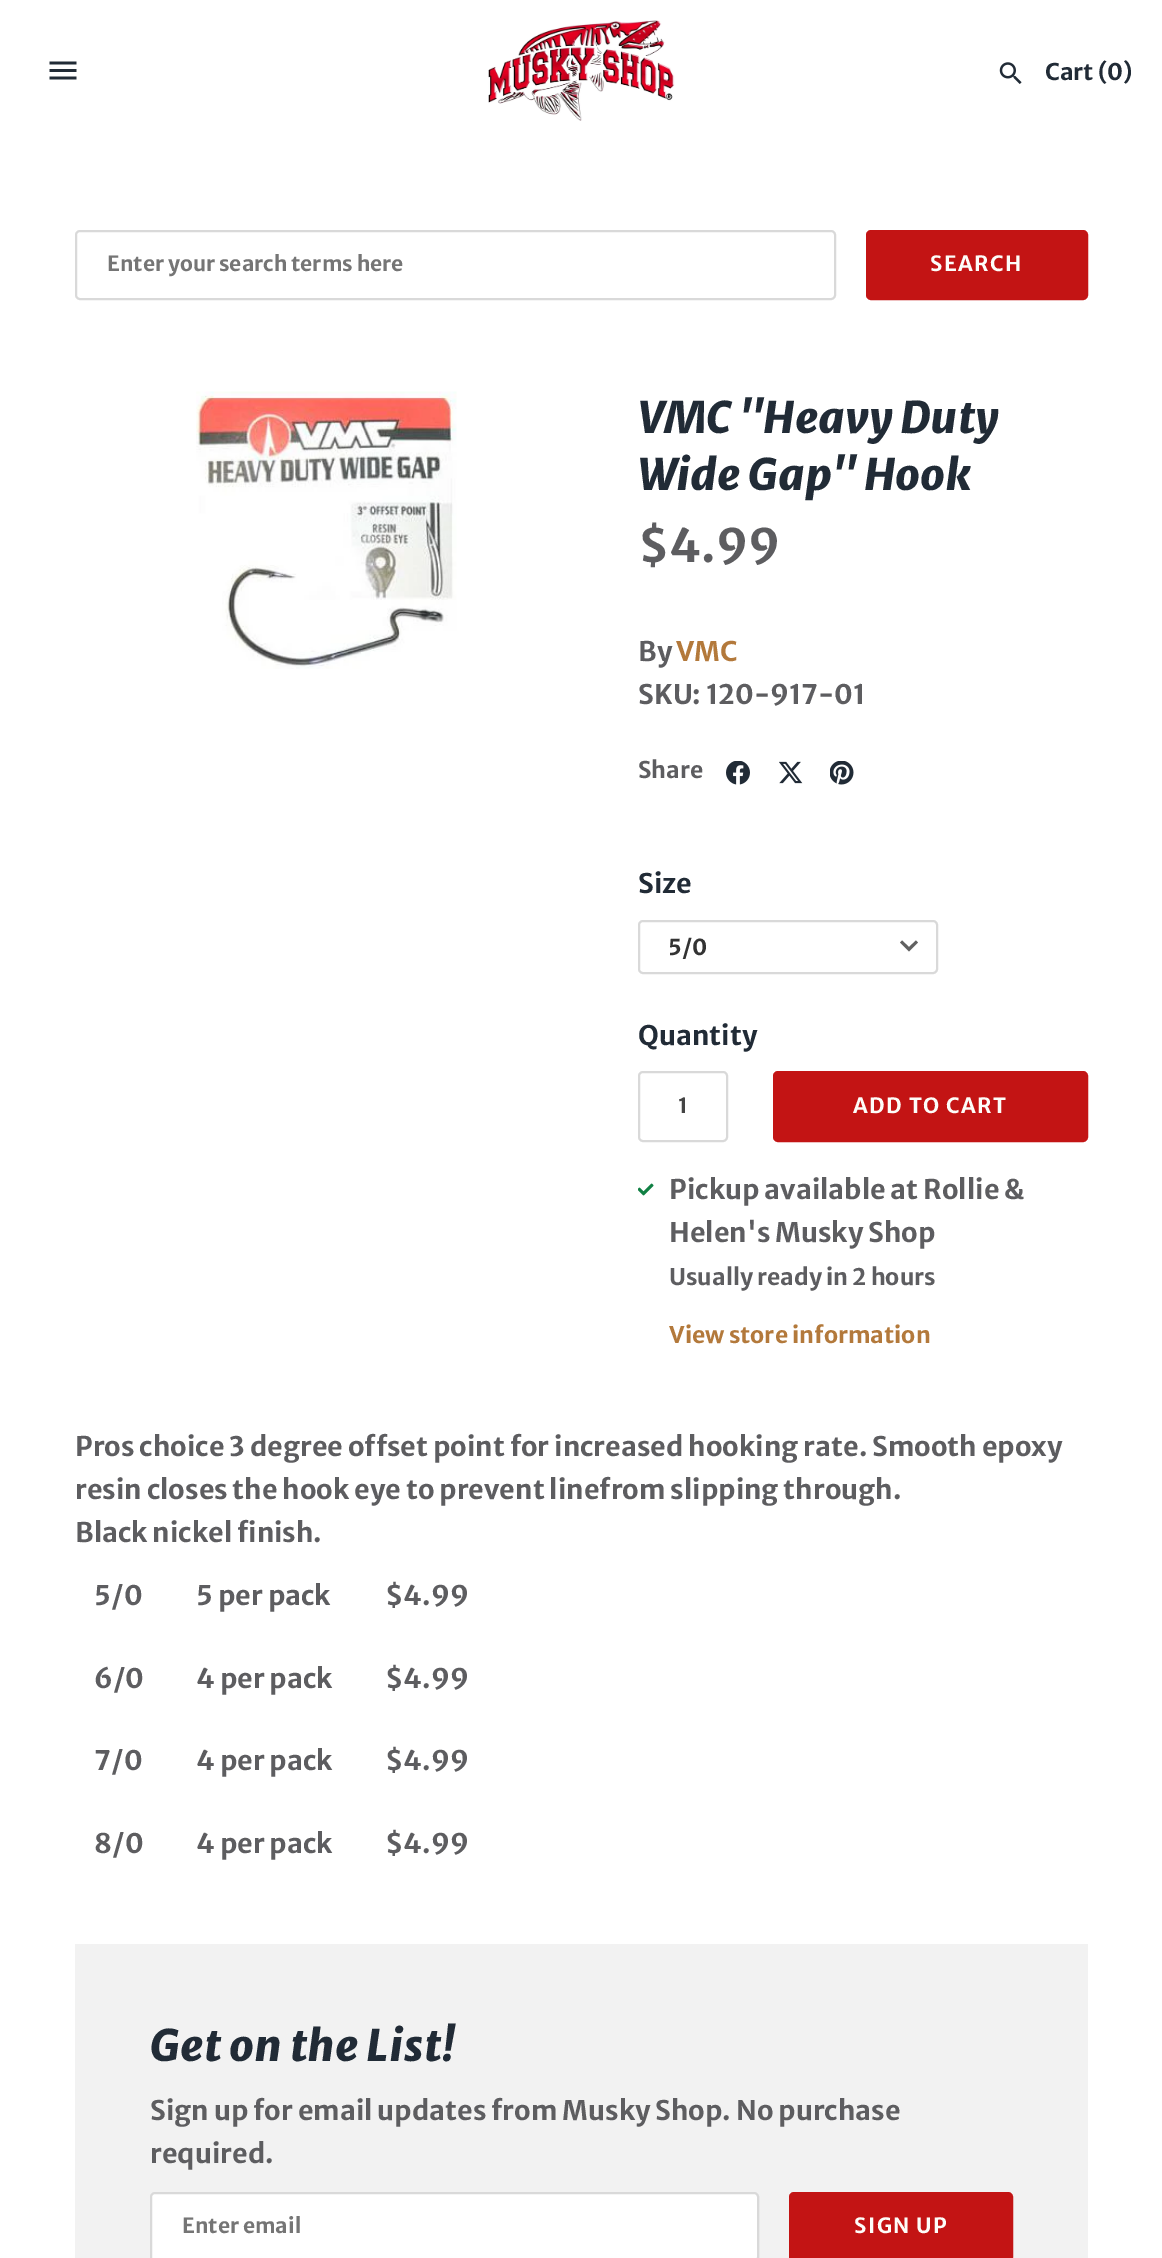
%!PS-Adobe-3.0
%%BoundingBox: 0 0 1162 2258
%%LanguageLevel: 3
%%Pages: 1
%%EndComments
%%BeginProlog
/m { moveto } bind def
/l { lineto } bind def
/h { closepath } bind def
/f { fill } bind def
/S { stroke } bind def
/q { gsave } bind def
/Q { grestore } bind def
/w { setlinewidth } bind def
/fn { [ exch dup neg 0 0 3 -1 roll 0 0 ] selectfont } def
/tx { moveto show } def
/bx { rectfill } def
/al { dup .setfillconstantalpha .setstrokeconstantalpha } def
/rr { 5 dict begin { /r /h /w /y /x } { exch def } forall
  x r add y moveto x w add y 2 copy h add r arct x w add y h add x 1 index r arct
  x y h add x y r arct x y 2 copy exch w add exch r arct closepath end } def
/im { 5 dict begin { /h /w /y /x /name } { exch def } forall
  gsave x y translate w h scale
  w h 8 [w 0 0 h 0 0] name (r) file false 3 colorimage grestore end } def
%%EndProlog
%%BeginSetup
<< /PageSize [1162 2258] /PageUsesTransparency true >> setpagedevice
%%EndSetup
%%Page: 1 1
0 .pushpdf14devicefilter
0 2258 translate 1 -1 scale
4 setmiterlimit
1 setgray
0 0 1162 2258 bx
(image0.raw) 49 61 28 19 im
(image1.raw) 488 20 187 101 im
(image2.raw) 999 62 23 22 im
/MerriweatherSans-Bold 23 fn
0.129 0.169 0.212 setrgbcolor
(Cart \(0\)) 1045 80 tx
0.851 setgray
2 w
76 231 759 68 4 rr S
/MerriweatherSans-Bold 21 fn
0.459 setgray
(Enter your search terms here) 107 271 tx
0.765 0.078 0.078 setrgbcolor
867 231 220 68 4 rr q f Q
S
0.992 0.992 0.976 setrgbcolor
930 271 m 1.5 0 (SEARCH) ashow
(image3.raw) 196 391 261 278 im
/MerriweatherSans-ExtraBoldItalic 43.25 fn
0.129 0.169 0.212 setrgbcolor
(VMC "Heavy Duty) 638 433 tx
(Wide Gap" Hook) 638 490 tx
/MerriweatherSans-Bold 46 fn
0.365 0.365 0.376 setrgbcolor
($4.99) 638 562 tx
/MerriweatherSans-Bold 27 fn
(By) 638 661 tx
0.702 0.475 0.231 setrgbcolor
(VMC) 676 661 tx
0.365 0.365 0.376 setrgbcolor
(SKU: 120-917-01) 638 704 tx
/MerriweatherSans-Bold 23 fn
(Share) 638 778 tx
(image4.raw) 726 761 24 24 im
(image5.raw) 779 761 24 23 im
(image6.raw) 830 761 24 24 im
/MerriweatherSans-Bold 27 fn
0.129 0.169 0.212 setrgbcolor
(Size) 638 893 tx
0.38 setgray
902 940.5 m 909 947 l 916 940.5 l 918 942.5 l 909 951.5 l 900 942.5 l h f
0.851 setgray
639 921 298 52 4 rr S
/MerriweatherSans-Bold 22 fn
0.2 setgray
(5/0) 668 955 tx
/MerriweatherSans-Bold 27 fn
0.129 0.169 0.212 setrgbcolor
(Quantity) 638 1045 tx
0.851 setgray
639 1072 88 69 4 rr S
/MerriweatherSans-Bold 21 fn
0.267 setgray
(1) 678 1113 tx
0.765 0.078 0.078 setrgbcolor
774 1072 313 69 4 rr q f Q
S
0.992 0.992 0.976 setrgbcolor
853 1113 m 1.5 0 (ADD TO CART) ashow
(image7.raw) 638 1183 16 13 im
/MerriweatherSans-Bold 27 fn
0.365 0.365 0.376 setrgbcolor
(Pickup available at Rollie &) 669 1199 tx
(Helen's Musky Shop) 669 1242 tx
/MerriweatherSans-Bold 23 fn
(Usually ready in 2 hours) 669 1285 tx
0.702 0.475 0.231 setrgbcolor
(View store information) 669 1343 tx
/MerriweatherSans-Bold 27 fn
0.365 0.365 0.376 setrgbcolor
(Pros choice 3 degree offset point for increased hooking rate. Smooth epoxy) 75 1456 tx
(resin closes the hook eye to prevent linefrom slipping through.) 75 1499 tx
(Black nickel finish.) 75 1542 tx
(5/0) 94 1605 tx
(5 per pack) 196 1605 tx
($4.99) 385 1605 tx
(6/0) 94 1688 tx
(4 per pack) 196 1688 tx
($4.99) 385 1688 tx
(7/0) 94 1770 tx
(4 per pack) 196 1770 tx
($4.99) 385 1770 tx
(8/0) 94 1853 tx
(4 per pack) 196 1853 tx
($4.99) 385 1853 tx
0.949 setgray
75 1944 1013 314 bx
/MerriweatherSans-ExtraBoldItalic 43.25 fn
0.129 0.169 0.212 setrgbcolor
(Get on the List!) 150 2061 tx
/MerriweatherSans-Bold 27 fn
0.365 0.365 0.376 setrgbcolor
(Sign up for email updates from Musky Shop. No purchase) 150 2120 tx
(required.) 150 2163 tx
1 setgray
150 2192 609 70 5 rr f
0.15 al
0 setgray
151 2193 607 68 4 rr S
/MerriweatherSans-Bold 21 fn
1 al
0.459 setgray
(Enter email) 182 2233 tx
0.765 0.078 0.078 setrgbcolor
790 2193 222 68 4 rr q f Q
S
0.992 0.992 0.976 setrgbcolor
854 2233 m 1.5 0 (SIGN UP) ashow
.poppdf14devicefilter showpage
%%EOF
